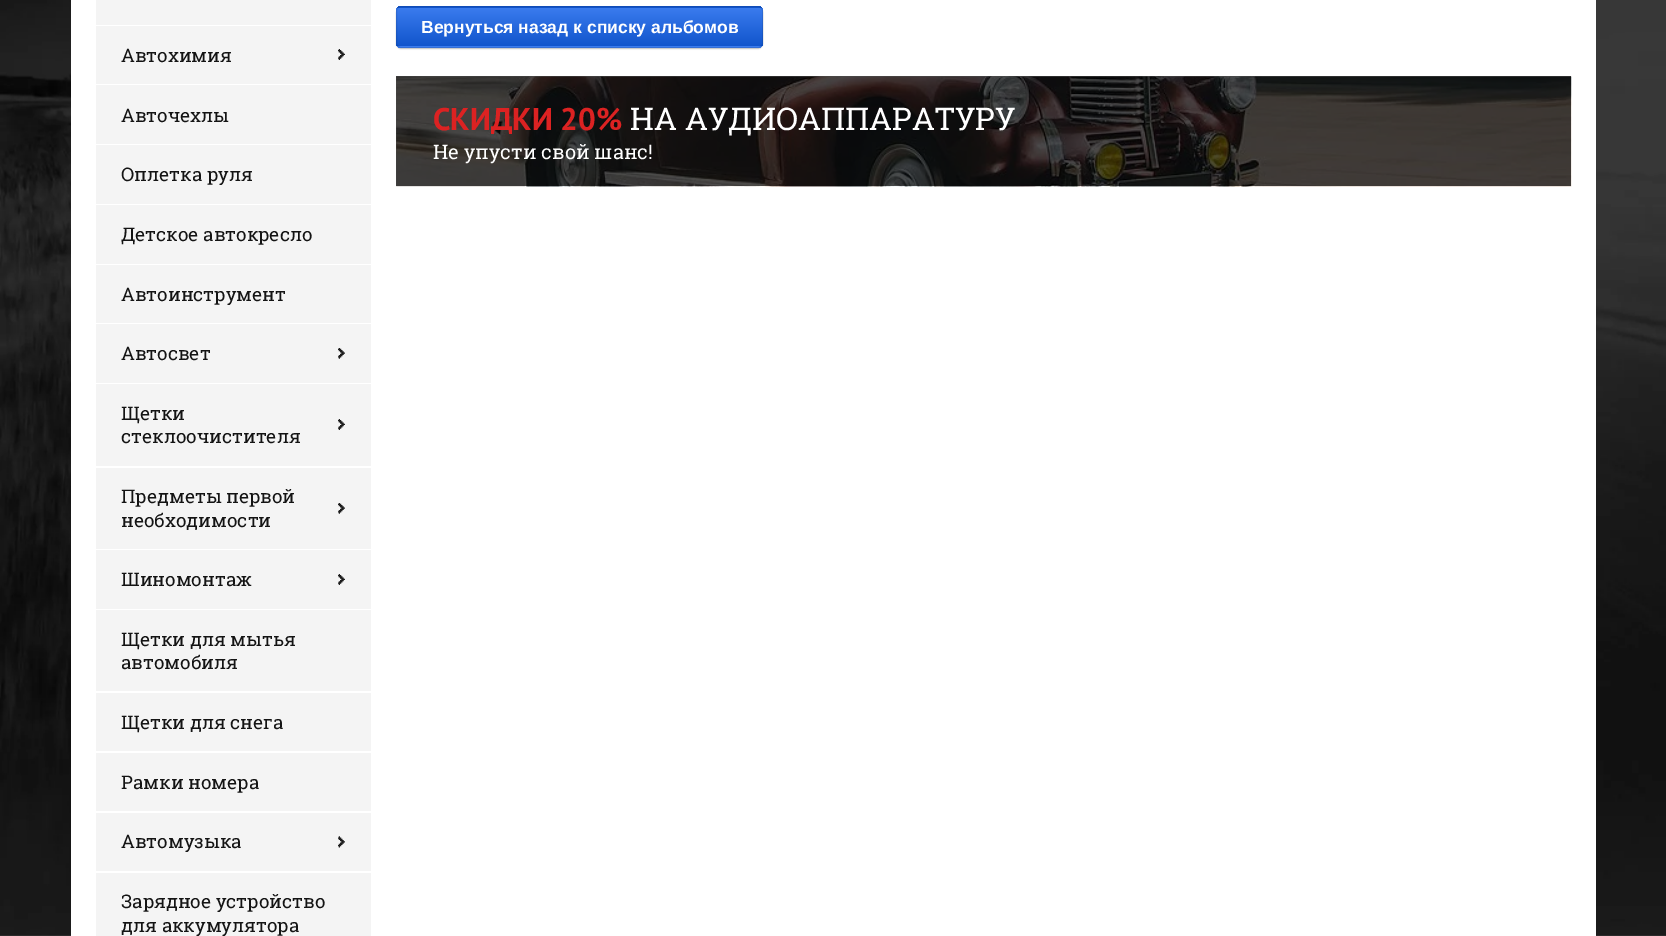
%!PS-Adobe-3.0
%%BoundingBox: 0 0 1666 936
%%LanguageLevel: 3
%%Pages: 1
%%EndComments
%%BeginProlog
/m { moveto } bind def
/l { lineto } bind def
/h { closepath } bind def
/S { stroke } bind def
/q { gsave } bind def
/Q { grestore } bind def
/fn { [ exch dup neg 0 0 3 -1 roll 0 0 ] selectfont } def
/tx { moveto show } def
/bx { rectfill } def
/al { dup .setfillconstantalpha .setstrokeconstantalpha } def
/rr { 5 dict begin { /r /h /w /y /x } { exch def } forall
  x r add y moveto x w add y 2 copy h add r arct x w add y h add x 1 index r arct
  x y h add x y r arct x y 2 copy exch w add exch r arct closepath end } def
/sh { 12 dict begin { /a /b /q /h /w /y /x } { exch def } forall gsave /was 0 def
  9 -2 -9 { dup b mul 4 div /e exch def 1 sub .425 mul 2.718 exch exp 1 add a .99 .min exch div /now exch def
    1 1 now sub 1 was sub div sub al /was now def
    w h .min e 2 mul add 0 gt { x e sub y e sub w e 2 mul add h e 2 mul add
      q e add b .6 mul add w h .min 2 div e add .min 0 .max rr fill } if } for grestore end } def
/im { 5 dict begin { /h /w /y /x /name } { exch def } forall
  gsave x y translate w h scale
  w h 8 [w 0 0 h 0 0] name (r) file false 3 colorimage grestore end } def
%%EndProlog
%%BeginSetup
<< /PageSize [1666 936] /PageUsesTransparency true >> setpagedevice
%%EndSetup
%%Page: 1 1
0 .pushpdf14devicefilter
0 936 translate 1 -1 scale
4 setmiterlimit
1 setgray
0 0 1666 936 bx
(image0.raw) 0 0 1666 936 im
71 0 1525 936 bx
0.957 setgray
96 0 275 25 bx
96 26 275 58 bx
/RobotoSlab-Regular 18.75 fn
0.078 setgray
(Автохимия) 121 62 tx
(image1.raw) 338 49 7 11 im
0.957 setgray
96 85 275 59 bx
0.078 setgray
(Авточехлы) 121 122 tx
0.957 setgray
96 145 275 59 bx
0.078 setgray
(Оплетка руля) 121 181 tx
0.957 setgray
96 205 275 59 bx
0.078 setgray
(Детское автокресло) 121 241 tx
0.957 setgray
96 265 275 58 bx
0.078 setgray
(Автоинструмент) 121 301 tx
0.957 setgray
96 324 275 59 bx
0.078 setgray
(Автосвет) 121 360 tx
(image2.raw) 338 348 7 11 im
0.957 setgray
96 384 275 82 bx
0.078 setgray
(Щетки) 121 420 tx
(image1.raw) 338 419 7 11 im
(стеклоочистителя) 121 443 tx
0.957 setgray
96 468 275 81 bx
0.078 setgray
(Предметы первой) 121 503 tx
(image2.raw) 338 503 7 11 im
(необходимости) 121 527 tx
0.957 setgray
96 550 275 59 bx
0.078 setgray
(Шиномонтаж) 121 586 tx
(image1.raw) 338 574 7 11 im
0.957 setgray
96 610 275 81 bx
0.078 setgray
(Щетки для мытья) 121 646 tx
(автомобиля) 121 669 tx
0.957 setgray
96 693 275 58 bx
0.078 setgray
(Щетки для снега) 121 729 tx
0.957 setgray
96 753 275 58 bx
0.078 setgray
(Рамки номера) 121 789 tx
0.957 setgray
96 813 275 58 bx
0.078 setgray
(Автомузыка) 121 848 tx
(image3.raw) 338 836 7 12 im
0.957 setgray
96 873 275 63 bx
0.078 setgray
(Зарядное устройство) 121 908 tx
(для аккумулятора) 121 932 tx
0 setgray
396 8 367 41 5 0.5 0.2 sh
q
396 6 367 42 5 rr clip newpath
q 396 6 m 763 6 l 763 8 l 396 8 l h clip newpath
<< /ShadingType 2 /ColorSpace /DeviceRGB /Coords [579 -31 579 7.5] /Extend [true true] /Function << /FunctionType 2 /Domain [0 1] /C0 [0.231 0.486 0.937] /C1 [0.067 0.333 0.8] /N 1 >> >> shfill Q
q 396 8 m 763 8 l 763 46 l 396 46 l h clip newpath
<< /ShadingType 2 /ColorSpace /DeviceRGB /Coords [579 7.5 579 46] /Extend [true true] /Function << /FunctionType 2 /Domain [0 1] /C0 [0.231 0.486 0.937] /C1 [0.067 0.333 0.8] /N 1 >> >> shfill Q
q 396 46 m 763 46 l 763 48 l 396 48 l h clip newpath
<< /ShadingType 2 /ColorSpace /DeviceRGB /Coords [579 46 579 85] /Extend [true true] /Function << /FunctionType 2 /Domain [0 1] /C0 [0.231 0.486 0.937] /C1 [0.067 0.333 0.8] /N 1 >> >> shfill Q
Q
0.1 al
396.5 6.5 366 41 4.5 rr S
/LiberationSans-Bold 17.5 fn
1 al
1 setgray
(Вернуться назад к списку альбомов) 421 33 tx
(image4.raw) 396 76 1176 111 im
0.7 al
0 setgray
396 76 1175 110 bx
/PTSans-Bold 31.25 fn
1 al
0.863 0.133 0.133 setrgbcolor
(СКИДКИ 20%) 433 130 tx
/RobotoSlab-Regular 31.25 fn
1 setgray
(НА АУДИОАППАРАТУРУ) 630 130 tx
/RobotoSlab-Regular 20 fn
(Не упусти свой шанс!) 433 159 tx
.poppdf14devicefilter showpage
%%EOF
